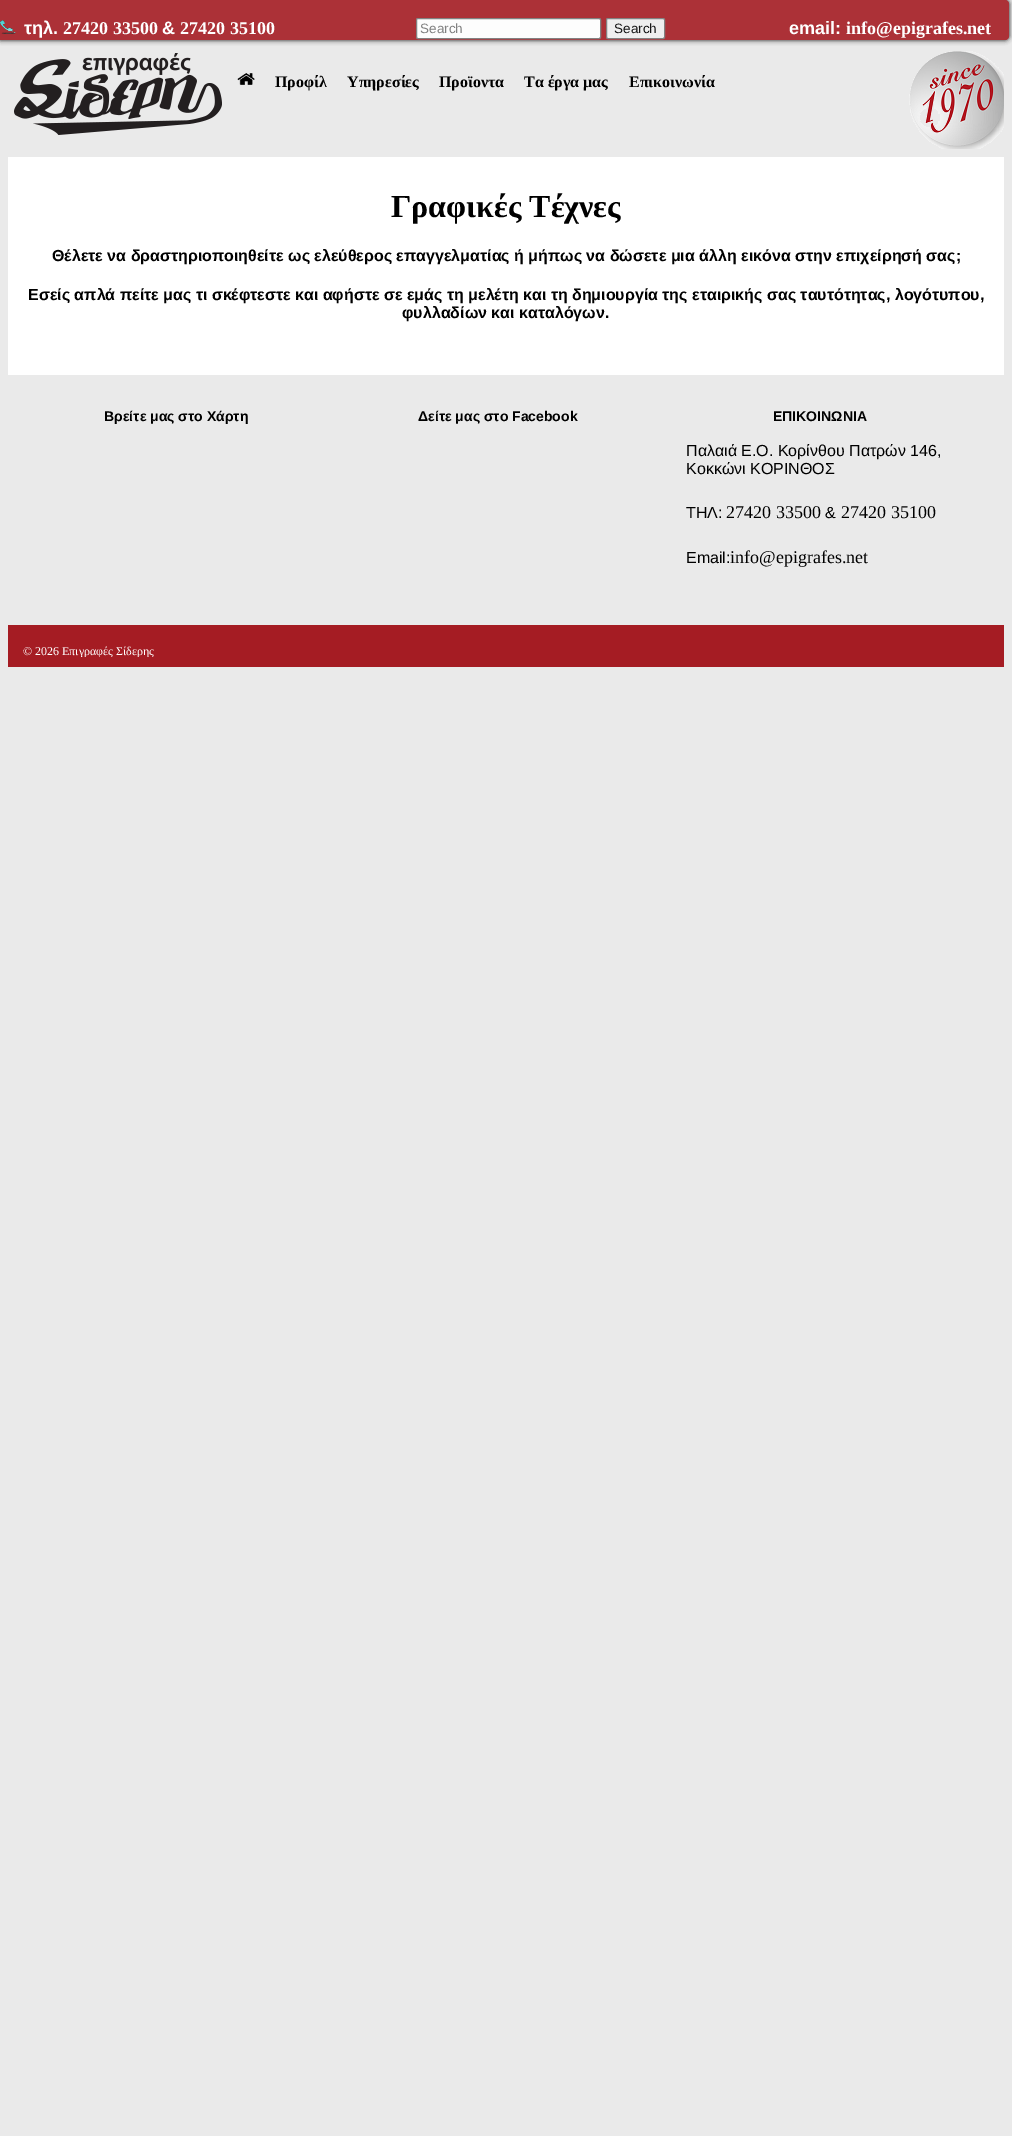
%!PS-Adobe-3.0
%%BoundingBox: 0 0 1012 2136
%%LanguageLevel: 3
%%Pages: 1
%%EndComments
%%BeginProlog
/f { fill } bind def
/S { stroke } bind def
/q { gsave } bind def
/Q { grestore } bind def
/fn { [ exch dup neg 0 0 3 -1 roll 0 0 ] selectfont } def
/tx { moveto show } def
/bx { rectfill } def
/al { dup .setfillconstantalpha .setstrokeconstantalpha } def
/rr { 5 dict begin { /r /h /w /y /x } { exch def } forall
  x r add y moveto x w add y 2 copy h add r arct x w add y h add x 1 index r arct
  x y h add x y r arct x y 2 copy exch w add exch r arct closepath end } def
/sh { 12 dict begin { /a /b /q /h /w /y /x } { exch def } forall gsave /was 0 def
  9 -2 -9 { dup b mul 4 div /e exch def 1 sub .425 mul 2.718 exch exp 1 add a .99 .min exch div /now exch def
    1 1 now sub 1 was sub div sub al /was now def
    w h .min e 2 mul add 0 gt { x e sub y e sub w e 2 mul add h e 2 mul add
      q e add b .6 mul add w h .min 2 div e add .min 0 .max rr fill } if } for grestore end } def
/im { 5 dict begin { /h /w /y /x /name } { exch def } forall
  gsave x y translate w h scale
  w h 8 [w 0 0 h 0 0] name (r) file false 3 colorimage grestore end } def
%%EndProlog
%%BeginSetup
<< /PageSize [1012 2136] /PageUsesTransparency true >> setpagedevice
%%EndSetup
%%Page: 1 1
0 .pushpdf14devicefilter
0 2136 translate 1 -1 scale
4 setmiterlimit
0.918 setgray
0 0 1012 2136 bx
0.09 setgray
-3 0 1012 40 4 2.5 1 sh
0.675 0.192 0.216 setrgbcolor
-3 0 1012 40 4 rr f
(image0.raw) 0 20 16 14 im
/LiberationSans-Bold 18 fn
1 setgray
(τηλ.) 24 34 tx
/LiberationSerif-Bold 18 fn
(27420 33500) 63 34 tx
/LiberationSans-Bold 18 fn
(&) 162 34 tx
/LiberationSerif-Bold 18 fn
(27420 35100) 180 34 tx
0.992 setgray
416.5 18.5 184 20 1.5 rr q f Q
0.51 setgray
S
/LiberationSans-Regular 13.5 fn
0.506 setgray
(Search) 420 33 tx
0.937 setgray
606.5 18.5 58 20 1.5 rr q f Q
0.51 setgray
S
0.09 setgray
(Search) 614 33 tx
/LiberationSans-Bold 18 fn
1 setgray
(email:) 789 34 tx
/LiberationSerif-Bold 18 fn
(info@epigrafes.net) 846 34 tx
(image1.raw) 14 53 208 82 im
(image2.raw) 237 73 18 12 im
/LiberationSerif-Bold 16 fn
0 setgray
(Προφίλ) 275 87 tx
(Υπηρεσίες) 347 87 tx
(Προϊοντα) 439 87 tx
(Τα έργα μας) 524 87 tx
(Επικοινωνία) 629 87 tx
(image3.raw) 909 51 95 98 im
1 setgray
8 157 996 218 bx
/LiberationSerif-Bold 32 fn
0 setgray
(Γραφικές Τέχνες) 391 217 tx
/LiberationSans-Bold 16 fn
(Θέλετε να δραστηριοποιηθείτε ως ελεύθερος επαγγελματίας ή μήπως να δώσετε μια άλλη εικόνα στην επιχείρησή σας;) 52 261 tx
(Εσείς απλά πείτε μας τι σκέφτεστε και αφήστε σε εμάς τη μελέτη και τη δημιουργία της εταιρικής σας ταυτότητας, λογότυπου,) 28 300 tx
(φυλλαδίων και καταλόγων.) 402 318 tx
/LiberationSans-Bold 14 fn
(Βρείτε μας στο Χάρτη) 104 421 tx
(Δείτε μας στο Facebook) 418 421 tx
(ΕΠΙΚΟΙΝΩΝΙΑ) 773 421 tx
/LiberationSans-Regular 16 fn
(Παλαιά Ε.Ο. Κορίνθου Πατρών 146,) 686 456 tx
(Κοκκώνι ΚΟΡΙΝΘΟΣ) 686 474 tx
(ΤΗΛ:) 686 518 tx
/LiberationSerif-Regular 18 fn
(27420 33500) 726 518 tx
/LiberationSans-Regular 16 fn
(&) 825 518 tx
/LiberationSerif-Regular 18 fn
(27420 35100) 841 518 tx
/LiberationSans-Regular 16 fn
(Email:) 686 563 tx
/LiberationSerif-Regular 18 fn
(info@epigrafes.net) 730 563 tx
0.647 0.11 0.137 setrgbcolor
8 625 996 42 bx
/LiberationSerif-Regular 12 fn
1 setgray
(©) 23 655 tx
q
8 635 483 22 rectclip
(2026 Επιγραφές Σίδερης) 35 655 tx
Q
.poppdf14devicefilter showpage
%%EOF
